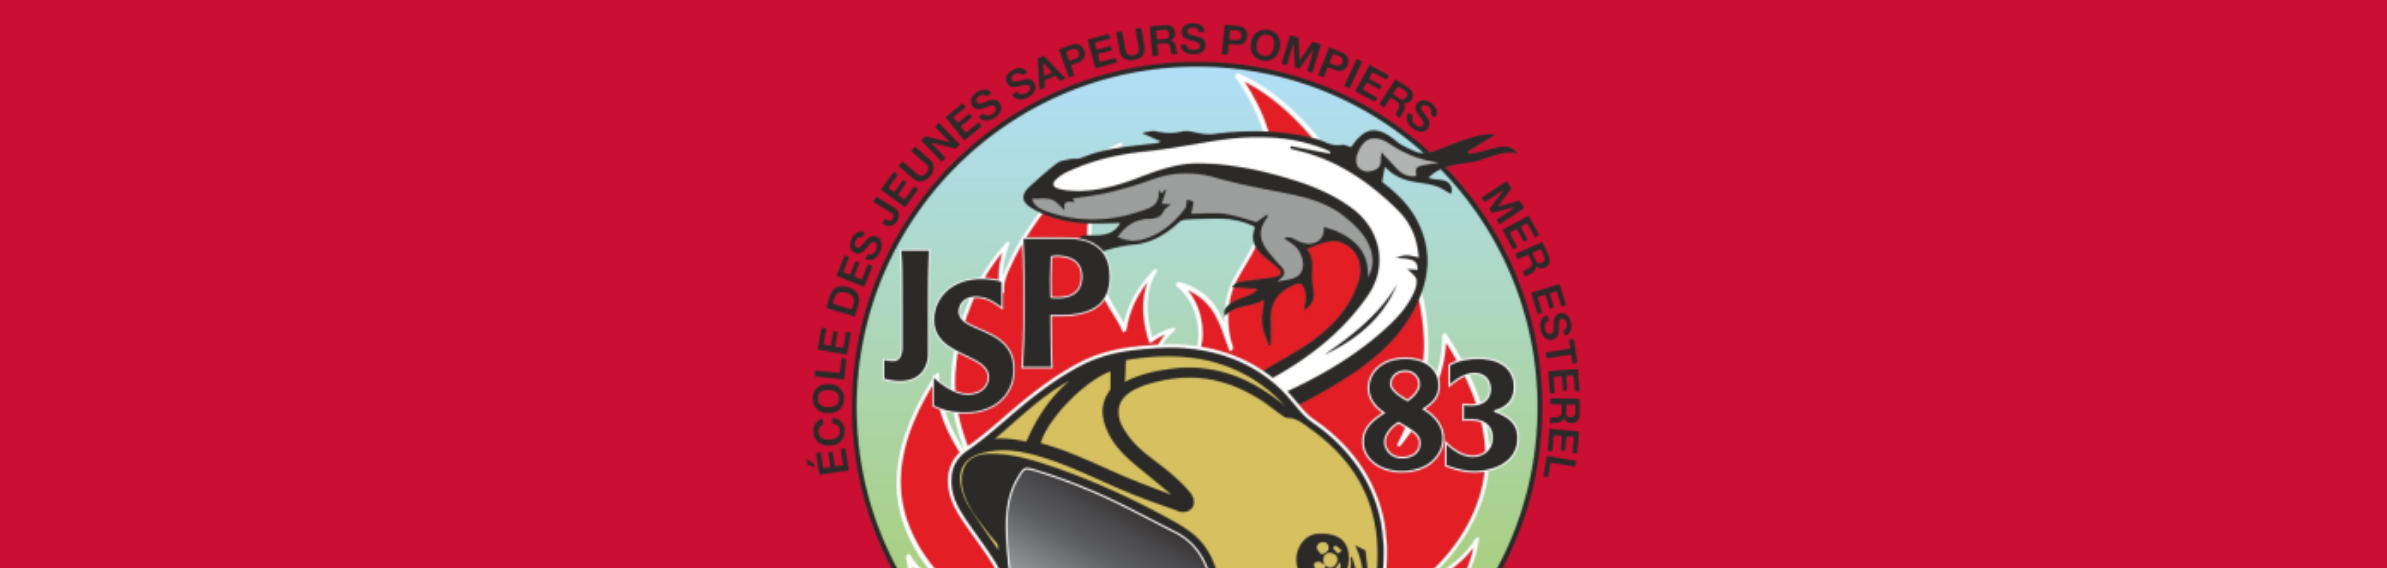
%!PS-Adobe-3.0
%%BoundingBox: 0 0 2387 568
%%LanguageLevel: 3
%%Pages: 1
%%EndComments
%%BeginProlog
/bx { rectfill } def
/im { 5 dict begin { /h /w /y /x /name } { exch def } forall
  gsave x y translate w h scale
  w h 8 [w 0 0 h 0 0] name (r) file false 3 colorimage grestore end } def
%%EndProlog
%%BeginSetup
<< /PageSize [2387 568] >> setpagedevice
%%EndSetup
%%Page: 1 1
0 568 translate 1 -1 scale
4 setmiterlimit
0.796 0.059 0.2 setrgbcolor
0 0 2387 568 bx
(image0.raw) 805 21 776 547 im
showpage
%%EOF
